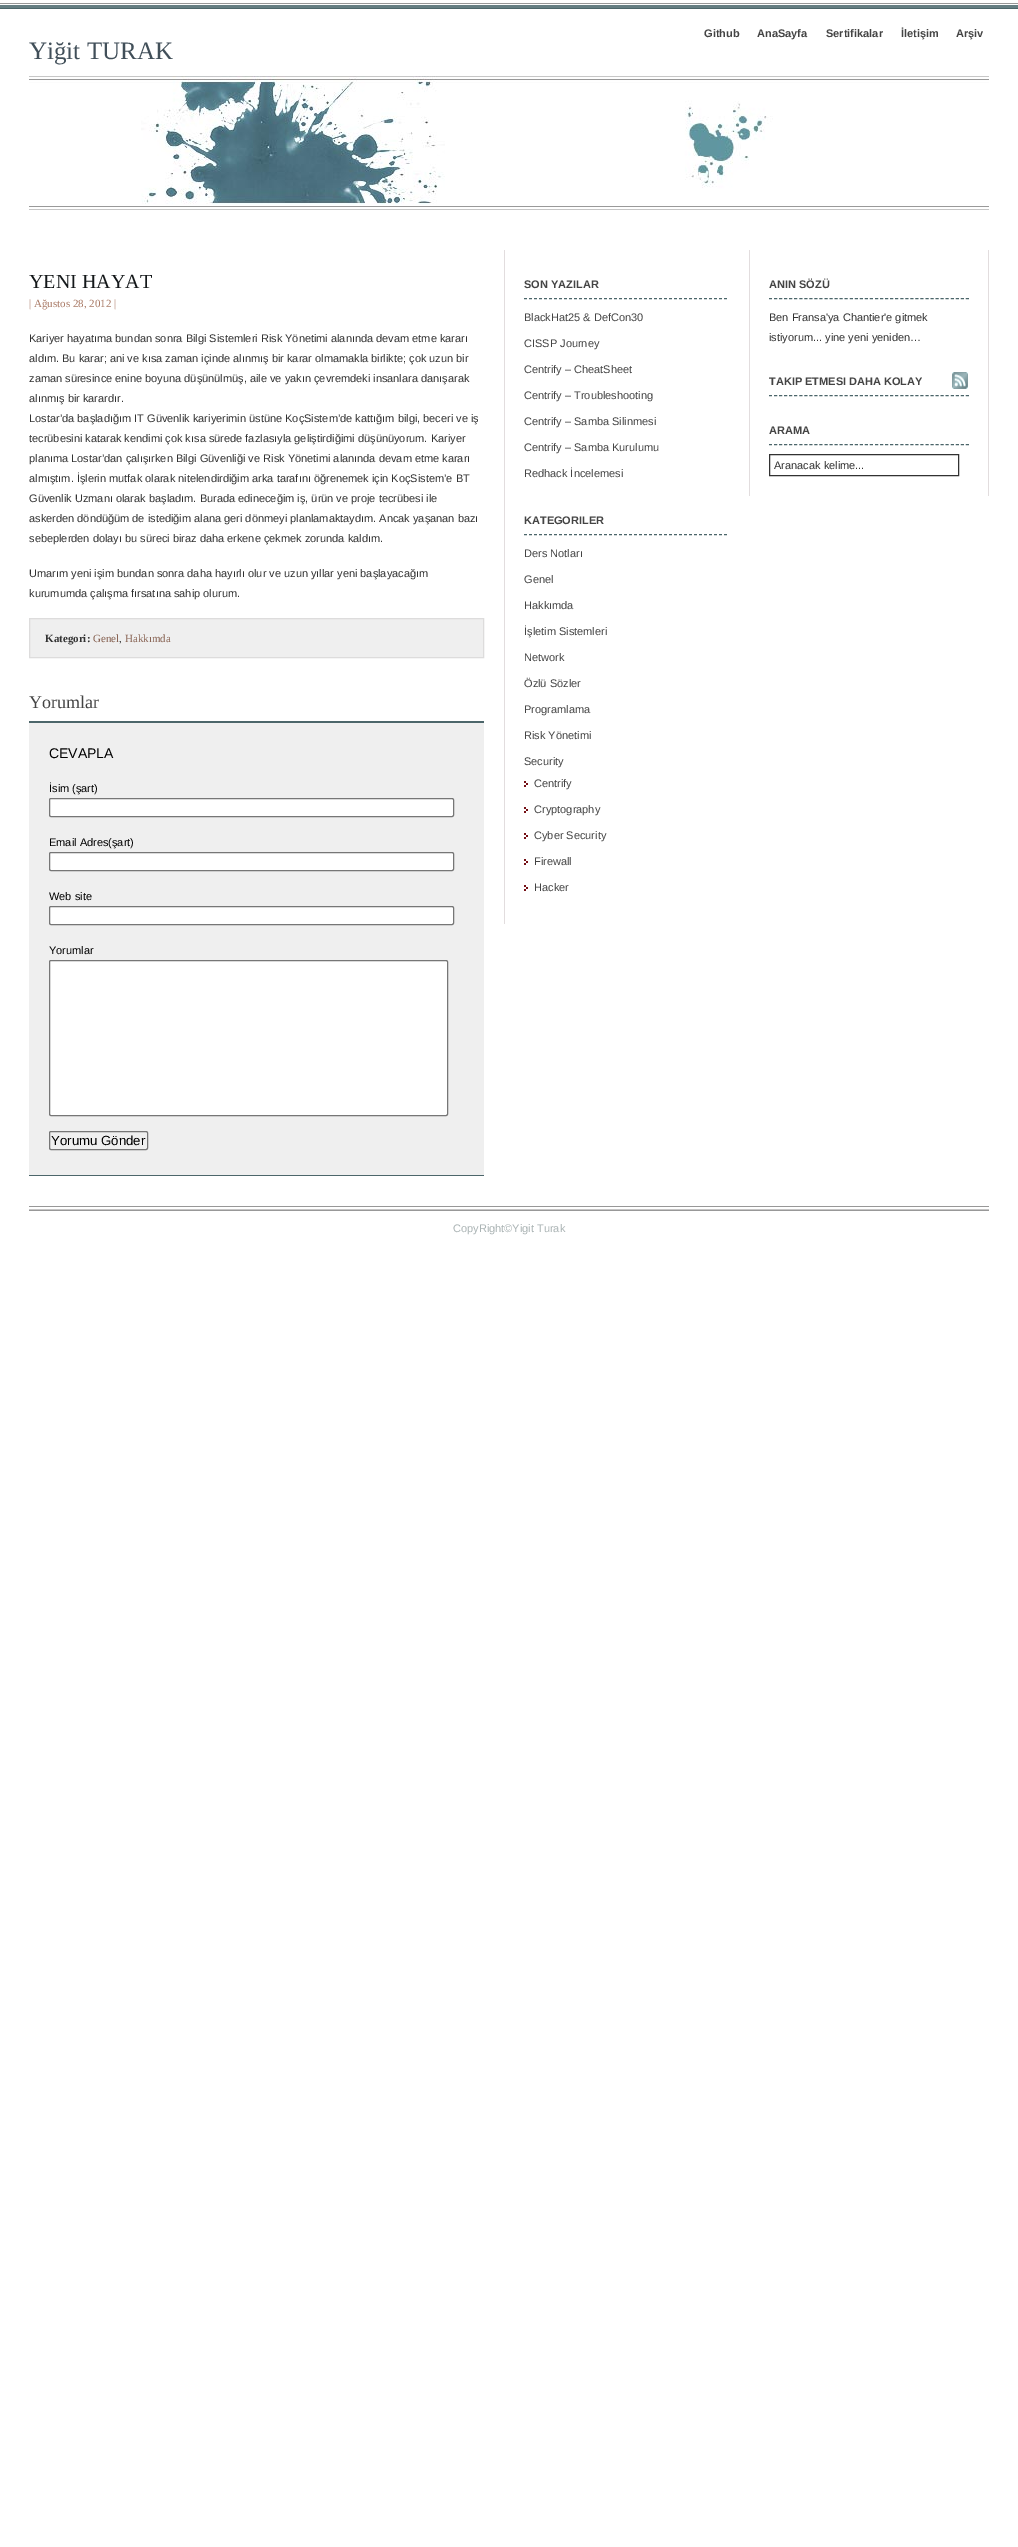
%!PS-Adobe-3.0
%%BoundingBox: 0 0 1018 2547
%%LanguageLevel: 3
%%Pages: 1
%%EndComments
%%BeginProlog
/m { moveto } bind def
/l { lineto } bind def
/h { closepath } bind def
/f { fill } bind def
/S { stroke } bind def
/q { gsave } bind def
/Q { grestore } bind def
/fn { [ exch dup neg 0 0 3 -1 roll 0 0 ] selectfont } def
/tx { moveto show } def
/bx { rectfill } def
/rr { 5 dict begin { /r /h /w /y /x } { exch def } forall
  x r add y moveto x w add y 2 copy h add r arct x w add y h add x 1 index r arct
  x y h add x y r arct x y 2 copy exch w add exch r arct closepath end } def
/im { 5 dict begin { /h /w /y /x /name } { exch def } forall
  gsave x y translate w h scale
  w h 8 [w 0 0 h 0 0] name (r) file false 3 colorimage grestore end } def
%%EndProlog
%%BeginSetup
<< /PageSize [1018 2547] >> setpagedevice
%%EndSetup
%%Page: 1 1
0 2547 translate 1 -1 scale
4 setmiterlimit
1 setgray
0 0 1018 2547 bx
(image0.raw) 0 3 1018 6 im
29 3 960 6 bx
(image1.raw) 29 3 960 6 im
/LiberationSans-Bold 11 fn
0.267 setgray
(Github) 704 37 tx
(AnaSayfa) 757 37 tx
(Sertifikalar) 826 37 tx
(İletişim) 901 37 tx
(Arşiv) 956 37 tx
/LiberationSerif-Regular 25 fn
0.255 0.31 0.349 setrgbcolor
(Yiğit TURAK) 29 59 tx
(image2.raw) 29 76 960 134 im
/LiberationSerif-Regular 20 fn
0.078 0.094 0.102 setrgbcolor
(YENI HAYAT) 29 288 tx
/LiberationSerif-Regular 11 fn
0.663 0.475 0.396 setrgbcolor
(| Ağustos 28, 2012 |) 29 307 tx
/LiberationSans-Regular 11 fn
0.196 setgray
(Kariyer hayatıma bundan sonra Bilgi Sistemleri Risk Yönetimi alanında devam etme kararı) 29 342 tx
(aldım. Bu karar; ani ve kısa zaman içinde alınmış bir karar olmamakla birlikte; çok uzun bir) 29 362 tx
(zaman süresince enine boyuna düşünülmüş, aile ve yakın çevremdeki insanlara danışarak) 29 382 tx
(alınmış bir karardır.) 29 402 tx
(Lostar’da başladığım IT Güvenlik kariyerimin üstüne KoçSistem’de kattığım bilgi, beceri ve iş) 29 422 tx
(tecrübesini katarak kendimi çok kısa sürede fazlasıyla geliştirdiğimi düşünüyorum. Kariyer) 29 442 tx
(planıma Lostar’dan çalışırken Bilgi Güvenliği ve Risk Yönetimi alanında devam etme kararı) 29 462 tx
(almıştım. İşlerin mutfak olarak nitelendirdiğim arka tarafını öğrenemek için KoçSistem’e BT) 29 482 tx
(Güvenlik Uzmanı olarak başladım. Burada edineceğim iş, ürün ve proje tecrübesi ile) 29 502 tx
(askerden döndüğüm de istediğim alana geri dönmeyi planlamaktaydım. Ancak yaşanan bazı) 29 522 tx
(sebeplerden dolayı bu süreci biraz daha erkene çekmek zorunda kaldım.) 29 542 tx
(Umarım yeni işim bundan sonra daha hayırlı olur ve uzun yıllar yeni başlayacağım) 29 577 tx
(kurumumda çalışma fırsatına sahip olurum.) 29 597 tx
0.937 setgray
29.5 618.5 m 483.5 618.5 l 483.5 657.5 l 29.5 657.5 l h q f Q
0.867 0.863 0.863 setrgbcolor
S
/LiberationSerif-Bold 11 fn
0.196 setgray
(Kategori:) 45 642 tx
/LiberationSerif-Regular 11 fn
0.533 0.388 0.325 setrgbcolor
(Genel) 93 642 tx
0.196 setgray
(,) 119 642 tx
0.533 0.388 0.325 setrgbcolor
(Hakkımda) 125 642 tx
/LiberationSerif-Regular 18 fn
0.267 setgray
(Yorumlar) 29 708 tx
0.937 setgray
29 723 455 452 bx
0.298 0.4 0.416 setrgbcolor
29 721 455 2 bx
29 1175 455 1 bx
/LiberationSans-Regular 14 fn
0 setgray
(CEVAPLA) 49 758 tx
/LiberationSans-Regular 11 fn
(İsim \(şart\)) 49 792 tx
1 setgray
49.5 798.5 404 18 1.5 rr q f Q
0.463 setgray
S
0 setgray
(Email Adres\(şart\)) 49 846 tx
1 setgray
49.5 852.5 404 18 1.5 rr q f Q
0.463 setgray
S
0 setgray
(Web site) 49 900 tx
1 setgray
49.5 906.5 404 18 1.5 rr q f Q
0.463 setgray
S
0 setgray
(Yorumlar) 49 954 tx
1 setgray
49.5 960.5 398 155 1.5 rr q f Q
0.463 setgray
S
49.5 1131.5 98 18 1.5 rr S
/LiberationSans-Regular 13.25 fn
0 setgray
(Yorumu Gönder) 51 1145 tx
0.886 0.867 0.871 setrgbcolor
504 250 1 674 bx
0.298 0.4 0.416 setrgbcolor
[3 2] 0 setdash
524 298.5 m 727 298.5 l S
/LiberationSans-Bold 11 fn
0.267 setgray
(SON YAZILAR) 524 288 tx
/LiberationSans-Regular 11 fn
(BlackHat25 & DefCon30) 524 321 tx
(CISSP Journey) 524 347 tx
(Centrify – CheatSheet) 524 373 tx
(Centrify – Troubleshooting) 524 399 tx
(Centrify – Samba Silinmesi) 524 425 tx
(Centrify – Samba Kurulumu) 524 451 tx
(Redhack İncelemesi) 524 477 tx
0.298 0.4 0.416 setrgbcolor
524 534.5 m 727 534.5 l S
/LiberationSans-Bold 11 fn
0.267 setgray
(KATEGORILER) 524 524 tx
/LiberationSans-Regular 11 fn
(Ders Notları) 524 557 tx
(Genel) 524 583 tx
(Hakkımda) 524 609 tx
(İşletim Sistemleri) 524 635 tx
(Network) 524 661 tx
(Özlü Sözler) 524 687 tx
(Programlama) 524 713 tx
(Risk Yönetimi) 524 739 tx
(Security) 524 765 tx
(image3.raw) 524 781 4 6 im
(Centrify) 534 787 tx
(image3.raw) 524 807 4 6 im
(Cryptography) 534 813 tx
(image3.raw) 524 833 4 6 im
(Cyber Security) 534 839 tx
(image3.raw) 524 859 4 6 im
(Firewall) 534 865 tx
(image3.raw) 524 885 4 6 im
(Hacker) 534 891 tx
0.886 0.867 0.871 setrgbcolor
988 250 1 246 bx
749 250 1 246 bx
0.298 0.4 0.416 setrgbcolor
[3 2.05] 0 setdash
769 298.5 m 969 298.5 l S
/LiberationSans-Bold 11 fn
0.267 setgray
(ANIN SÖZÜ) 769 288 tx
/LiberationSans-Regular 11 fn
0.196 setgray
(Ben Fransa'ya Chantier'e gitmek) 769 321 tx
(istiyorum... yine yeni yeniden…) 769 341 tx
(image4.raw) 952 372 16 17 im
0.298 0.4 0.416 setrgbcolor
769 395.5 m 969 395.5 l S
/LiberationSans-Bold 11 fn
0.267 setgray
(TAKIP ETMESI DAHA KOLAY) 769 385 tx
0.298 0.4 0.416 setrgbcolor
769 444.5 m 969 444.5 l S
0.267 setgray
(ARAMA) 769 434 tx
0.196 setgray
[] 0 setdash
769.5 454.5 189 21 rectstroke
/LiberationSans-Regular 11 fn
(Aranacak kelime...) 774 469 tx
(image5.raw) 29 1206 960 5 im
0.667 0.702 0.706 setrgbcolor
(CopyRight©Yigit Turak) 453 1232 tx
showpage
%%EOF
